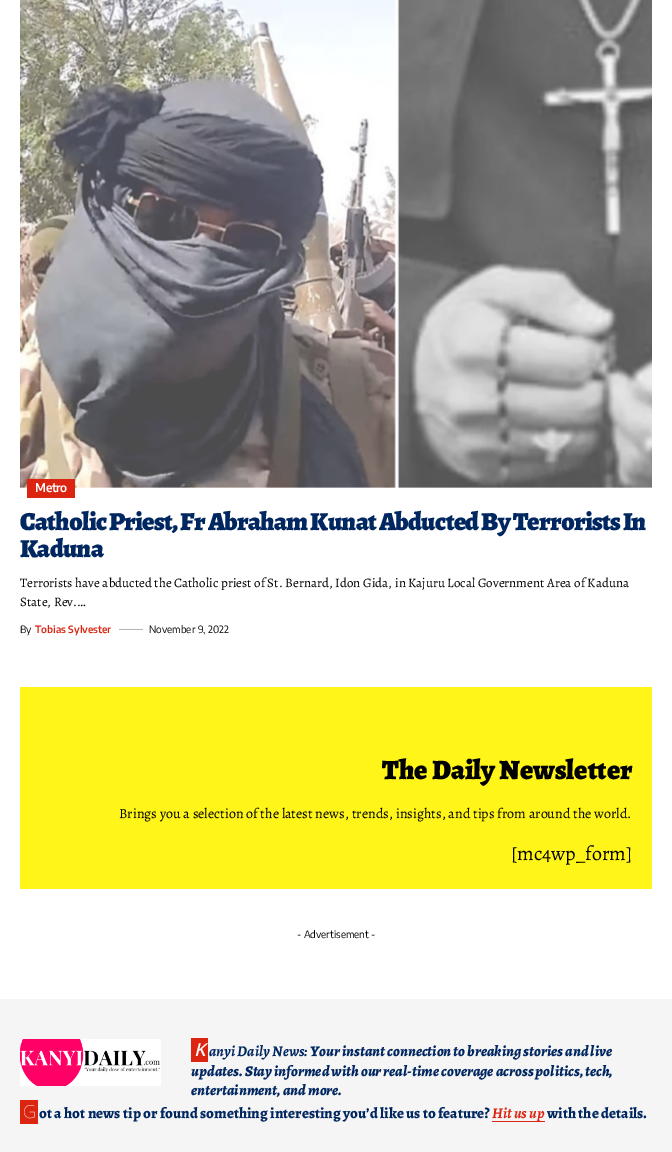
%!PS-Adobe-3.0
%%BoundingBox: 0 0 672 1152
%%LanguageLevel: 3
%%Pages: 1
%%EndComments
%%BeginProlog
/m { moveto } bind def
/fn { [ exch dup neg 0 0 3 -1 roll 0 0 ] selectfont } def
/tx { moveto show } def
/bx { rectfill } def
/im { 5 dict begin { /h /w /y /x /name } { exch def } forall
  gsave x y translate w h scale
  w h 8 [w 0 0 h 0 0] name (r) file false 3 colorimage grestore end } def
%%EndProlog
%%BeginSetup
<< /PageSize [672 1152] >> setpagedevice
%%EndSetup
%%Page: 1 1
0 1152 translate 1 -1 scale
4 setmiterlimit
1 setgray
0 0 672 1152 bx
(image0.raw) 20 0 632 488 im
0.859 0.145 0.067 setrgbcolor
27 479 48 19 bx
/EncodeSansCondensed-SemiBold 12 fn
1 setgray
35 492 m -0.5 0 (Metro) ashow
/Alegreya-Black 26 fn
0.004 0.153 0.38 setrgbcolor
20 530 m -0.78 0 (Catholic Priest, Fr Abraham Kunat Abducted By Terrorists In) ashow
20 557 m -0.78 0 (Kaduna) ashow
/Alegreya-Regular 13 fn
0 setgray
(Terrorists have abducted the Catholic priest of St. Bernard, Idon Gida, in Kajuru Local Government Area of Kaduna) 20 587 tx
(State, Rev.…) 20 606 tx
/EncodeSansCondensed-Regular 10 fn
(By) 20 633 tx
/EncodeSansCondensed-SemiBold 10 fn
0.859 0.145 0.067 setrgbcolor
(Tobias Sylvester) 35 633 tx
0.702 setgray
119 629 24 1 bx
/EncodeSansCondensed-Regular 10 fn
0 setgray
(November 9, 2022) 149 633 tx
1 0.961 0.094 setrgbcolor
20 687 632 202 bx
/Alegreya-Black 28 fn
0 setgray
(The Daily Newsletter) 382 779 tx
/Alegreya-Regular 14 fn
(Brings you a selection of the latest news, trends, insights, and tips from around the world.) 119 818 tx
/Alegreya-Regular 20 fn
([mc4wp_form]) 511 860 tx
/EncodeSansCondensed-Regular 10 fn
(- Advertisement -) 297 938 tx
0.961 setgray
0 999 672 153 bx
(image1.raw) 20 1039 141 47 im
0.859 0.145 0.067 setrgbcolor
191 1038 17 24 bx
/NotoSans-MediumItalic 18 fn
1 setgray
(K) 194 1056 tx
/Alegreya-BoldItalic 15 fn
0.004 0.153 0.38 setrgbcolor
(anyi Daily News:) 209 1056 tx
/Alegreya-ExtraBoldItalic 15 fn
(Your instant connection to breaking stories and live) 310 1056 tx
(updates. Stay informed with our real-time coverage across politics, tech,) 191 1076 tx
(entertainment, and more.) 191 1095 tx
0.859 0.145 0.067 setrgbcolor
20 1100 18 24 bx
/NotoSans-Thin 18 fn
1 setgray
(G) 23 1118 tx
/Alegreya-ExtraBold 15 fn
0.004 0.153 0.38 setrgbcolor
(ot a hot news tip or found something interesting you’d like us to feature?) 39 1118 tx
0.859 0.145 0.067 setrgbcolor
492 1121 53 1 bx
/Alegreya-BoldItalic 15 fn
(Hit us up) 492 1118 tx
/Alegreya-ExtraBold 15 fn
0.004 0.153 0.38 setrgbcolor
(with the details.) 547 1118 tx
showpage
%%EOF
